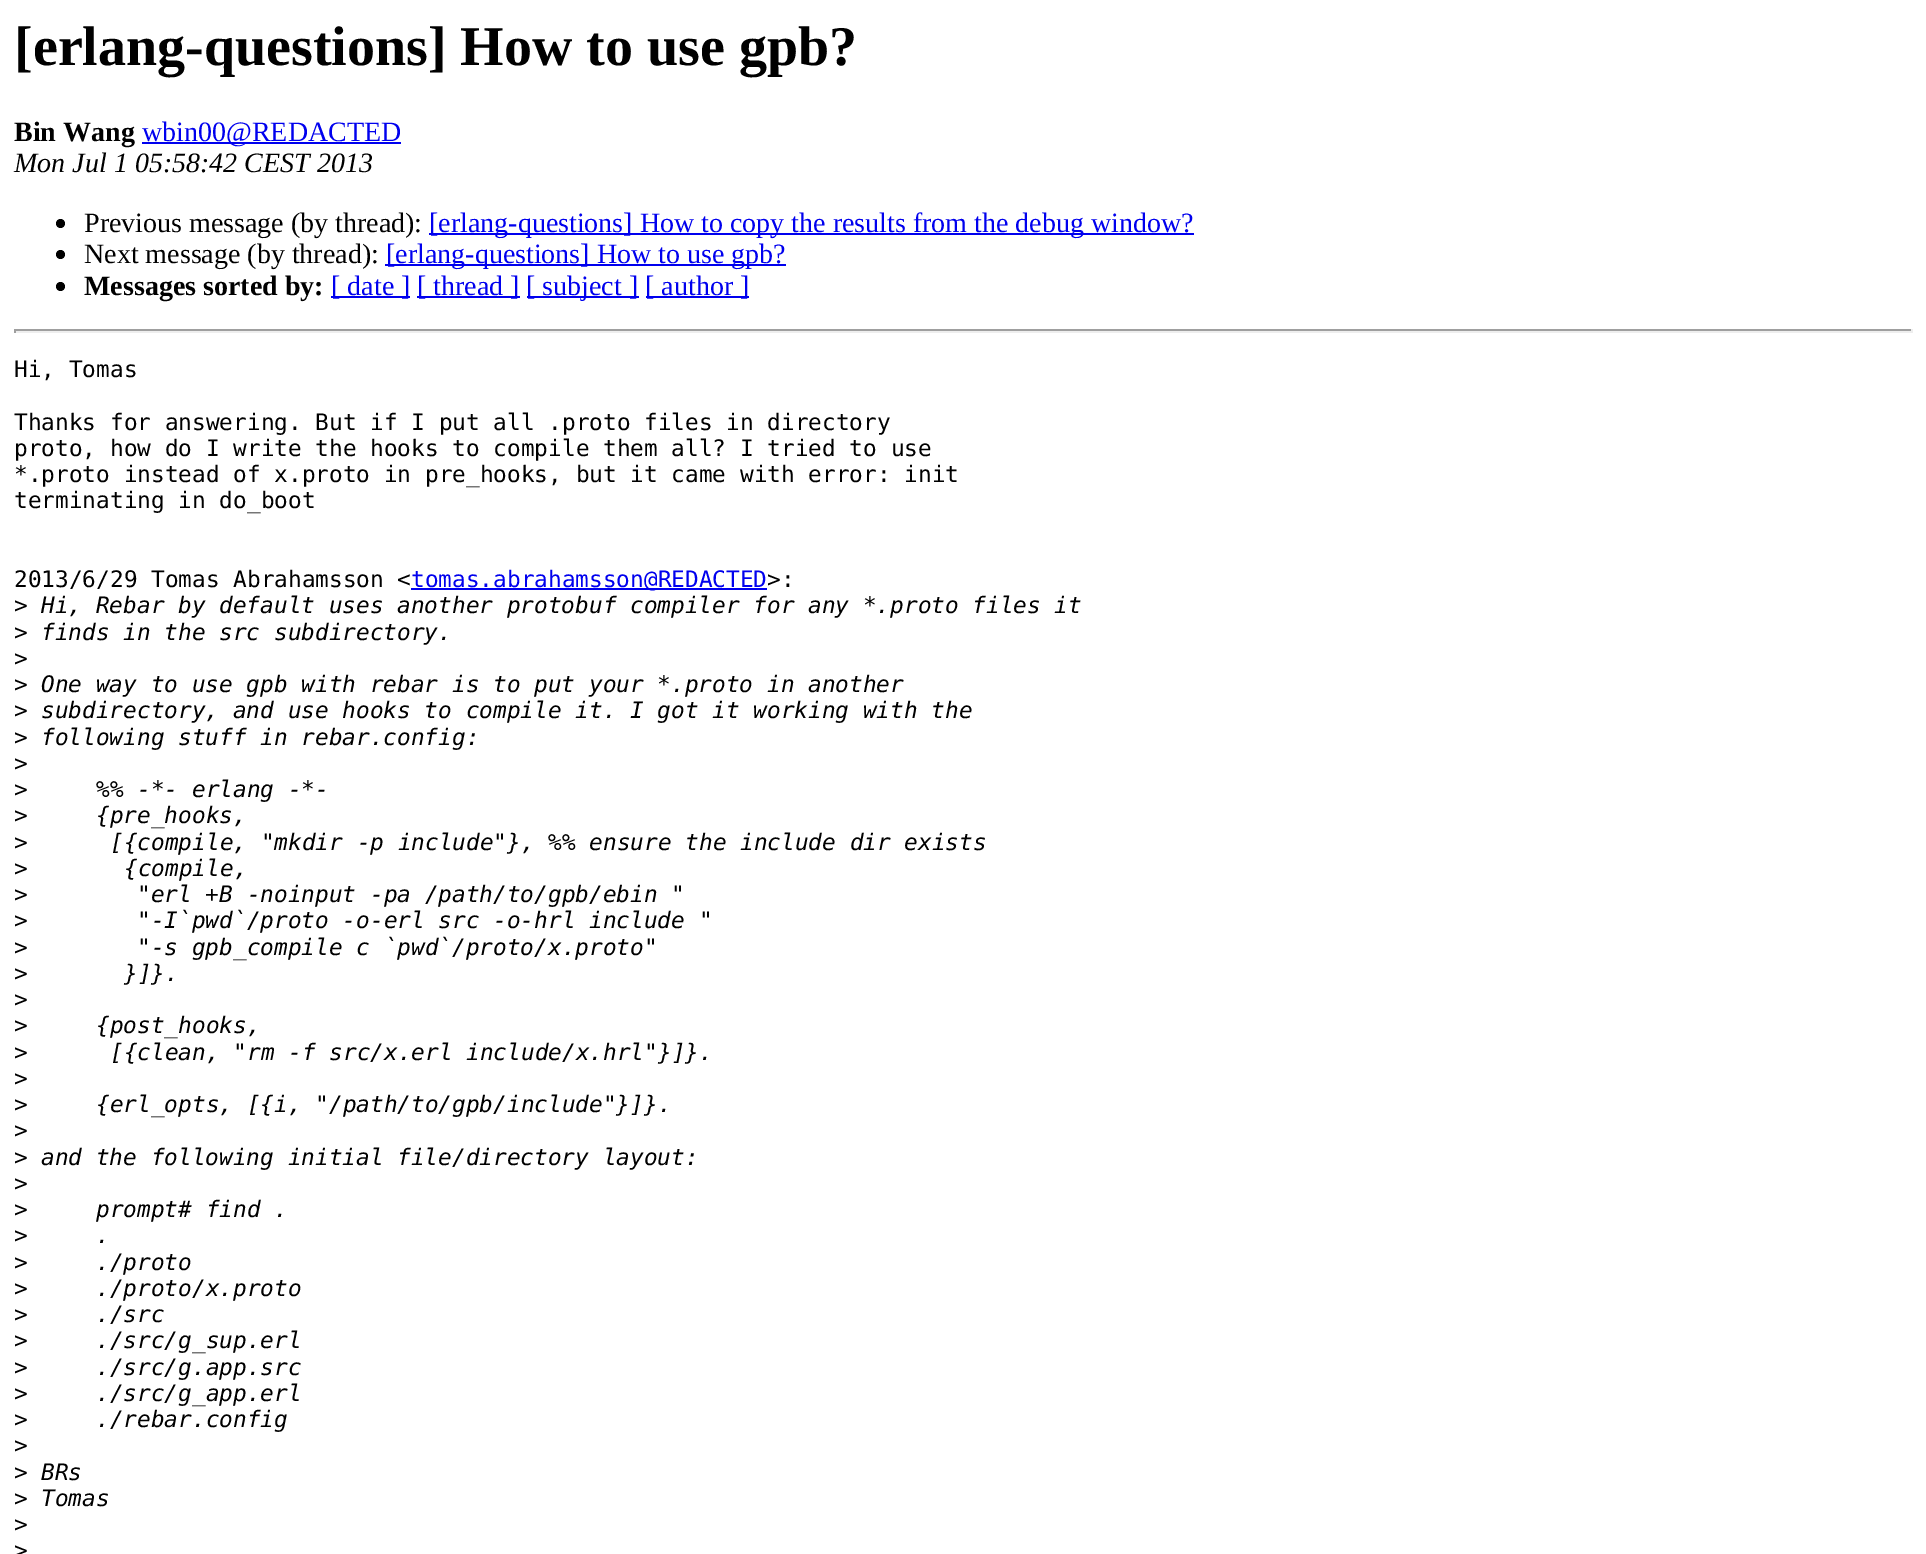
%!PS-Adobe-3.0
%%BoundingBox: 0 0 1926 1554
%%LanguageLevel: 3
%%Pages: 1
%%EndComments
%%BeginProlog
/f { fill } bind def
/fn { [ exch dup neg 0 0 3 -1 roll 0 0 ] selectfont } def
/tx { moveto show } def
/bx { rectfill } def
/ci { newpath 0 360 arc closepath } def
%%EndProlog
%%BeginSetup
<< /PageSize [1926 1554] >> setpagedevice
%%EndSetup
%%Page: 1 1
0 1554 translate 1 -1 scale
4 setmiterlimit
1 setgray
0 0 1926 1554 bx
/LiberationSerif-Bold 56 fn
0 setgray
([erlang-questions] How to use gpb?) 14 65 tx
/LiberationSerif-Bold 28 fn
(Bin Wang) 14 141 tx
0 0 0.933 setrgbcolor
142 142 259 2 bx
/LiberationSerif-Regular 28 fn
(wbin00@REDACTED) 142 141 tx
/LiberationSerif-Italic 28 fn
0 setgray
(Mon Jul 1 05:58:42 CEST 2013) 14 172 tx
60.5 223.5 4.5 ci f
/LiberationSerif-Regular 28 fn
(Previous message \(by thread\):) 84 232 tx
0 0 0.933 setrgbcolor
429 233 765 2 bx
([erlang-questions] How to copy the results from the debug window?) 429 232 tx
0 setgray
60.5 254.5 4.5 ci f
(Next message \(by thread\):) 84 263 tx
0 0 0.933 setrgbcolor
385 264 401 2 bx
([erlang-questions] How to use gpb?) 386 263 tx
0 setgray
60.5 286.5 4.5 ci f
/LiberationSerif-Bold 28 fn
(Messages sorted by:) 84 295 tx
0 0 0.933 setrgbcolor
331 296 79 2 bx
/LiberationSerif-Regular 28 fn
([ date ]) 331 295 tx
417 296 103 2 bx
([ thread ]) 417 295 tx
527 296 112 2 bx
([ subject ]) 526 295 tx
646 296 103 2 bx
([ author ]) 645 295 tx
0.624 setgray
14 329 1899 2 bx
0.933 setgray
1911 329 2 4 bx
14 331 1899 2 bx
0.624 setgray
14 329 2 4 bx
/DejaVuSansMono-Regular 22.75 fn
0 setgray
(Hi, Tomas) 14 377 tx
(Thanks for answering. But if I put all .proto files in directory) 14 430 tx
(proto, how do I write the hooks to compile them all? I tried to use) 14 456 tx
(*.proto instead of x.proto in pre_hooks, but it came with error: init) 14 482 tx
(terminating in do_boot) 14 508 tx
(2013/6/29 Tomas Abrahamsson <) 14 587 tx
0 0 0.933 setrgbcolor
411 588 356 2 bx
(tomas.abrahamsson@REDACTED) 411 587 tx
0 setgray
(>:) 767 587 tx
(>) 14 613 tx
/DejaVuSansMono-Italic 22.75 fn
(Hi, Rebar by default uses another protobuf compiler for any *.proto files it) 41 613 tx
/DejaVuSansMono-Regular 22.75 fn
(>) 14 640 tx
/DejaVuSansMono-Italic 22.75 fn
(finds in the src subdirectory.) 41 640 tx
/DejaVuSansMono-Regular 22.75 fn
(>) 14 666 tx
(>) 14 692 tx
/DejaVuSansMono-Italic 22.75 fn
(One way to use gpb with rebar is to put your *.proto in another) 41 692 tx
/DejaVuSansMono-Regular 22.75 fn
(>) 14 718 tx
/DejaVuSansMono-Italic 22.75 fn
(subdirectory, and use hooks to compile it. I got it working with the) 41 718 tx
/DejaVuSansMono-Regular 22.75 fn
(>) 14 745 tx
/DejaVuSansMono-Italic 22.75 fn
(following stuff in rebar.config:) 41 745 tx
/DejaVuSansMono-Regular 22.75 fn
(>) 14 771 tx
(>) 14 797 tx
/DejaVuSansMono-Italic 22.75 fn
(%% -*- erlang -*-) 96 797 tx
/DejaVuSansMono-Regular 22.75 fn
(>) 14 823 tx
/DejaVuSansMono-Italic 22.75 fn
({pre_hooks,) 96 823 tx
/DejaVuSansMono-Regular 22.75 fn
(>) 14 850 tx
/DejaVuSansMono-Italic 22.75 fn
([{compile, "mkdir -p include"}, %% ensure the include dir exists) 110 850 tx
/DejaVuSansMono-Regular 22.75 fn
(>) 14 876 tx
/DejaVuSansMono-Italic 22.75 fn
({compile,) 124 876 tx
/DejaVuSansMono-Regular 22.75 fn
(>) 14 902 tx
/DejaVuSansMono-Italic 22.75 fn
("erl +B -noinput -pa /path/to/gpb/ebin ") 137 902 tx
/DejaVuSansMono-Regular 22.75 fn
(>) 14 928 tx
/DejaVuSansMono-Italic 22.75 fn
("-I`pwd`/proto -o-erl src -o-hrl include ") 137 928 tx
/DejaVuSansMono-Regular 22.75 fn
(>) 14 955 tx
/DejaVuSansMono-Italic 22.75 fn
("-s gpb_compile c `pwd`/proto/x.proto") 137 955 tx
/DejaVuSansMono-Regular 22.75 fn
(>) 14 981 tx
/DejaVuSansMono-Italic 22.75 fn
(}]}.) 124 981 tx
/DejaVuSansMono-Regular 22.75 fn
(>) 14 1007 tx
(>) 14 1033 tx
/DejaVuSansMono-Italic 22.75 fn
({post_hooks,) 96 1033 tx
/DejaVuSansMono-Regular 22.75 fn
(>) 14 1060 tx
/DejaVuSansMono-Italic 22.75 fn
([{clean, "rm -f src/x.erl include/x.hrl"}]}.) 110 1060 tx
/DejaVuSansMono-Regular 22.75 fn
(>) 14 1086 tx
(>) 14 1112 tx
/DejaVuSansMono-Italic 22.75 fn
({erl_opts, [{i, "/path/to/gpb/include"}]}.) 96 1112 tx
/DejaVuSansMono-Regular 22.75 fn
(>) 14 1138 tx
(>) 14 1165 tx
/DejaVuSansMono-Italic 22.75 fn
(and the following initial file/directory layout:) 41 1165 tx
/DejaVuSansMono-Regular 22.75 fn
(>) 14 1191 tx
(>) 14 1217 tx
/DejaVuSansMono-Italic 22.75 fn
(prompt# find .) 96 1217 tx
/DejaVuSansMono-Regular 22.75 fn
(>) 14 1243 tx
/DejaVuSansMono-Italic 22.75 fn
(.) 96 1243 tx
/DejaVuSansMono-Regular 22.75 fn
(>) 14 1270 tx
/DejaVuSansMono-Italic 22.75 fn
(./proto) 96 1270 tx
/DejaVuSansMono-Regular 22.75 fn
(>) 14 1296 tx
/DejaVuSansMono-Italic 22.75 fn
(./proto/x.proto) 96 1296 tx
/DejaVuSansMono-Regular 22.75 fn
(>) 14 1322 tx
/DejaVuSansMono-Italic 22.75 fn
(./src) 96 1322 tx
/DejaVuSansMono-Regular 22.75 fn
(>) 14 1348 tx
/DejaVuSansMono-Italic 22.75 fn
(./src/g_sup.erl) 96 1348 tx
/DejaVuSansMono-Regular 22.75 fn
(>) 14 1375 tx
/DejaVuSansMono-Italic 22.75 fn
(./src/g.app.src) 96 1375 tx
/DejaVuSansMono-Regular 22.75 fn
(>) 14 1401 tx
/DejaVuSansMono-Italic 22.75 fn
(./src/g_app.erl) 96 1401 tx
/DejaVuSansMono-Regular 22.75 fn
(>) 14 1427 tx
/DejaVuSansMono-Italic 22.75 fn
(./rebar.config) 96 1427 tx
/DejaVuSansMono-Regular 22.75 fn
(>) 14 1453 tx
(>) 14 1480 tx
/DejaVuSansMono-Italic 22.75 fn
(BRs) 41 1480 tx
/DejaVuSansMono-Regular 22.75 fn
(>) 14 1506 tx
/DejaVuSansMono-Italic 22.75 fn
(Tomas) 41 1506 tx
/DejaVuSansMono-Regular 22.75 fn
(>) 14 1532 tx
(>) 14 1558 tx
showpage
%%EOF
